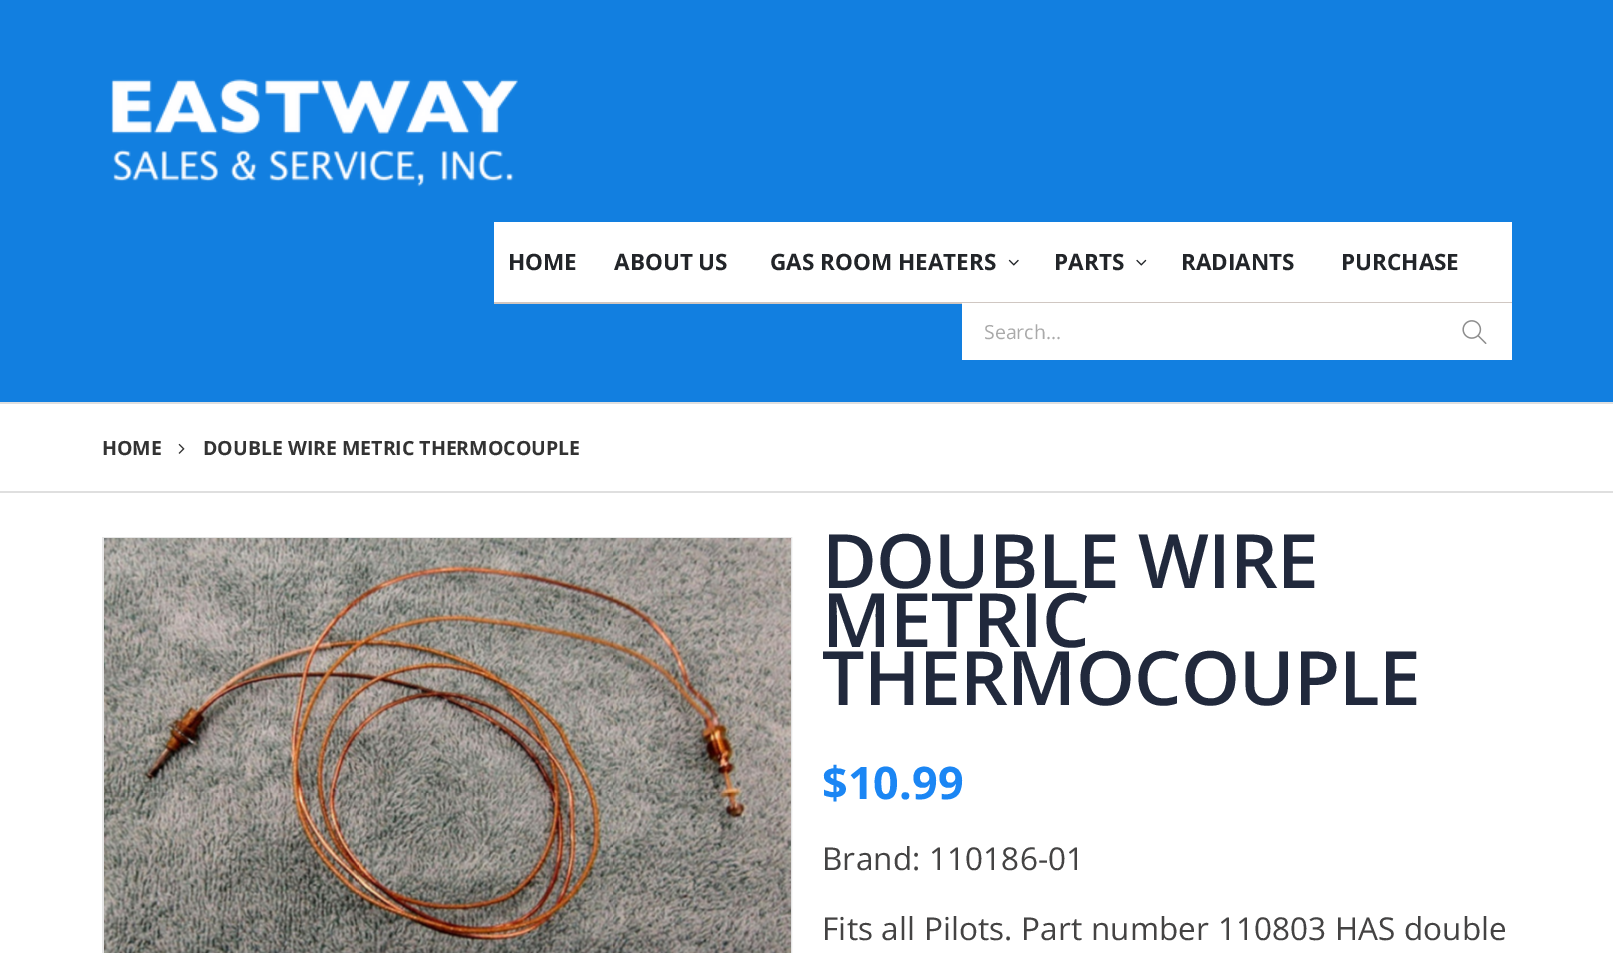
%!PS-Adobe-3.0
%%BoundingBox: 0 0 1613 953
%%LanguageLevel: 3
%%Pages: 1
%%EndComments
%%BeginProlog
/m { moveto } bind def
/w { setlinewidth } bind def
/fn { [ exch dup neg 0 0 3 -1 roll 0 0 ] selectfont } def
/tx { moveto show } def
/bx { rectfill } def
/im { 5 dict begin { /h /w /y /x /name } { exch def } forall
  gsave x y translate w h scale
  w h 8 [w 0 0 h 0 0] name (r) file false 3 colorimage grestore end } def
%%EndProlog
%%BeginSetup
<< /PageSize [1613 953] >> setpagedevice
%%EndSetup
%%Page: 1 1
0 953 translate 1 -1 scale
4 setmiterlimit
1 setgray
0 0 1613 953 bx
0.071 0.498 0.878 setrgbcolor
0 0 1613 402 bx
(image0.raw) 111 79 407 108 im
1 setgray
494 222 1018 80 bx
0.816 0.78 0.761 setrgbcolor
494 302 1018 2 bx
/OpenSans-Bold 22.5 fn
0.133 0.145 0.161 setrgbcolor
(HOME) 508 270 tx
(ABOUT US) 614 270 tx
(GAS ROOM HEATERS) 770 270 tx
(image1.raw) 1008 259 11 7 im
(PARTS) 1054 270 tx
(image2.raw) 1136 259 11 7 im
(RADIANTS) 1181 270 tx
(PURCHASE) 1341 270 tx
1 setgray
962 303 550 57 bx
/OpenSans-Regular 19.5 fn
0.667 setgray
(Search...) 984 339 tx
(image3.raw) 1462 320 25 24 im
0.875 setgray
0 402 1613 2 bx
0 491 1613 2 bx
/OpenSans-Bold 19.5 fn
0.2 setgray
(HOME) 102 455 tx
(image4.raw) 178 443 7 11 im
(DOUBLE WIRE METRIC THERMOCOUPLE) 203 455 tx
0.902 setgray
2 w
103 538 688 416 rectstroke
(image5.raw) 104 538 687 415 im
/OpenSans-SemiBold 75 fn
0.129 0.161 0.235 setrgbcolor
822 588 m -0.75 0 (DOUBLE WIRE) ashow
822 647 m -0.75 0 (METRIC) ashow
822 705 m -0.75 0 (THERMOCOUPLE) ashow
/OpenSans-Bold 45 fn
0.106 0.525 0.957 setrgbcolor
($10.99) 822 799 tx
/OpenSans-Regular 31.5 fn
0.267 0.263 0.263 setrgbcolor
822 870 m 0.15 0 (Brand: 110186-01) ashow
822 940 m 0.15 0 (Fits all Pilots. Part number 110803 HAS double) ashow
showpage
%%EOF
